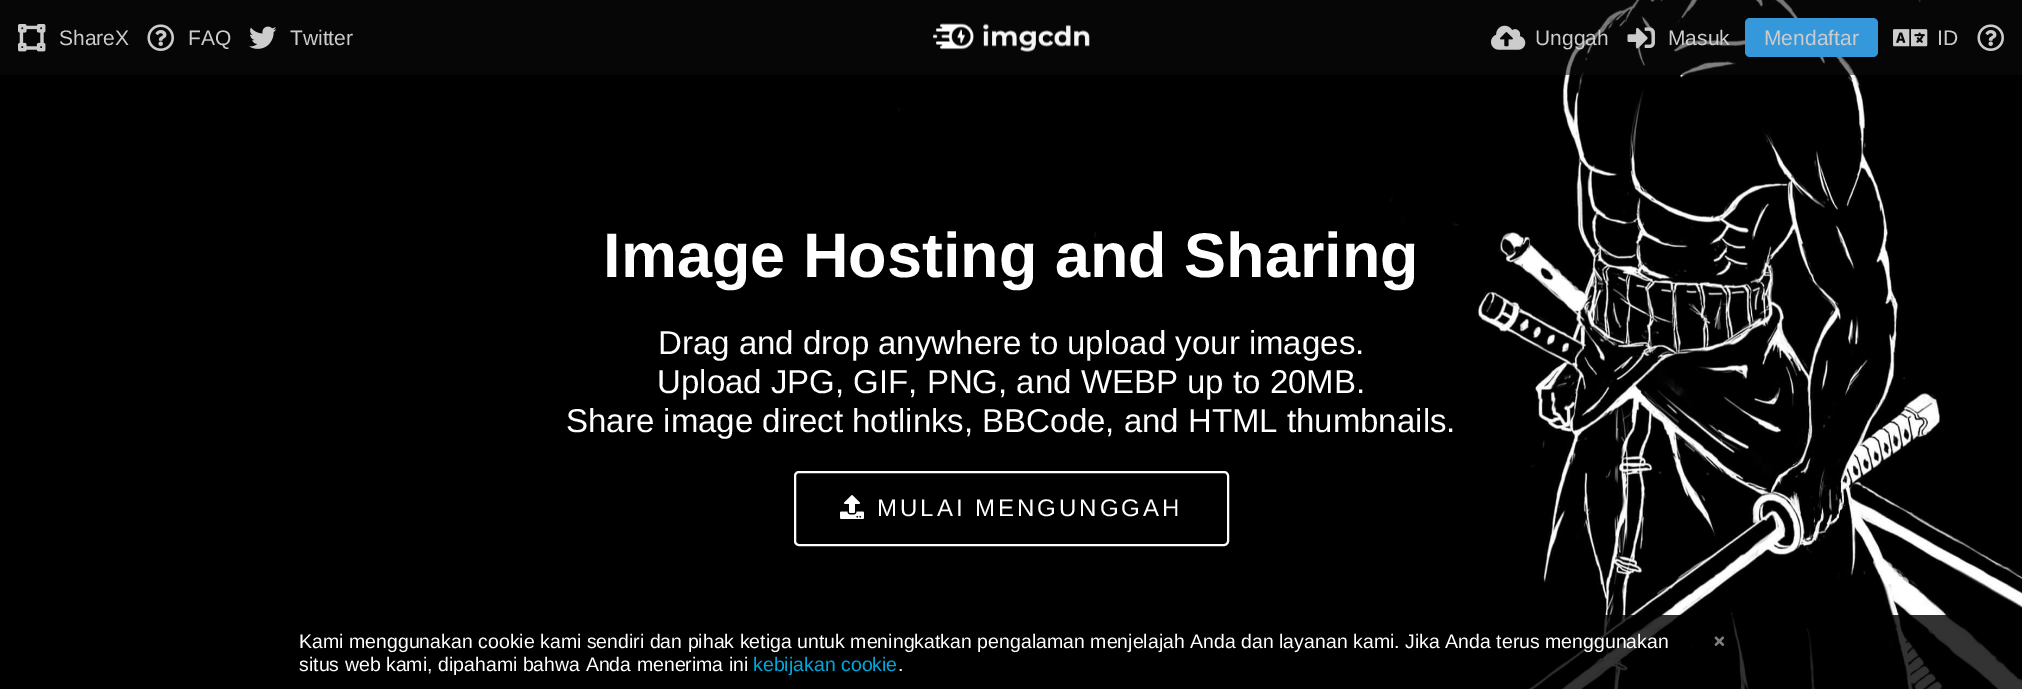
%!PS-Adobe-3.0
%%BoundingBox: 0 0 2022 689
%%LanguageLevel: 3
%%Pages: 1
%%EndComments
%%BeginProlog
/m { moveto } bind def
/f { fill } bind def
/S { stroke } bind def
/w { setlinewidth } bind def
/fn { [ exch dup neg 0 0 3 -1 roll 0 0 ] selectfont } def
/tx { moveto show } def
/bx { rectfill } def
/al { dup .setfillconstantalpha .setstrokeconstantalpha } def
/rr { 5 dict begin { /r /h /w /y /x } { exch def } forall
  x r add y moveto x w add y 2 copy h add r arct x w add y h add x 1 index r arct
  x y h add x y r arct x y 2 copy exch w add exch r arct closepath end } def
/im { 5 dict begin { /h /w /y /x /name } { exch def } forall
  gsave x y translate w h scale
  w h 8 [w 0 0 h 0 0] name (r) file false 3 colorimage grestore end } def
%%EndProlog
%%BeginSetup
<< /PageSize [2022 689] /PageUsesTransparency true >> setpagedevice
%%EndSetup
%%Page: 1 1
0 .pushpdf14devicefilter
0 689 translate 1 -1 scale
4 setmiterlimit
1 setgray
0 0 2022 689 bx
(image7.raw) 0 0 2022 689 im
0.5 al
0.043 setgray
0 0 2022 75 bx
1 al
(image0.raw) 18 24 28 28 im
/LiberationSans-Regular 21 fn
0.8 setgray
(ShareX) 59 45 tx
(image1.raw) 147 24 27 27 im
(FAQ) 188 45 tx
(image2.raw) 249 26 28 23 im
(Twitter) 290 45 tx
(image3.raw) 933 23 157 29 im
(image4.raw) 1491 25 35 25 im
(Unggah) 1535 45 tx
(image5.raw) 1627 27 28 22 im
(Masuk) 1668 45 tx
0.204 0.596 0.859 setrgbcolor
1745 18 133 39 5 rr f
0.8 setgray
(Mendaftar) 1764 45 tx
(image6.raw) 1893 29 35 18 im
(ID) 1937 45 tx
(image1.raw) 1977 24 27 27 im
/LiberationSans-Bold 63 fn
1 setgray
(Image Hosting and Sharing) 603 277 tx
/LiberationSans-Regular 33 fn
(Drag and drop anywhere to upload your images.) 658 354 tx
(Upload JPG, GIF, PNG, and WEBP up to 20MB.) 657 393 tx
(Share image direct hotlinks, BBCode, and HTML thumbnails.) 566 432 tx
2 w
795 472 433 73 4 rr S
(image8.raw) 840 495 24 24 im
/LiberationSans-Regular 24 fn
877 516 m 3 0 (MULAI MENGUNGGAH) ashow
0.8 al
0 setgray
1523 615 499 74 bx
/LiberationSans-Regular 19.53 fn
1 al
1 setgray
(Kami menggunakan cookie kami sendiri dan pihak ketiga untuk meningkatkan pengalaman menjelajah Anda dan layanan kami. Jika Anda terus menggunakan) 299 648 tx
(situs web kami, dipahami bahwa Anda menerima ini) 299 671 tx
0 0.655 0.855 setrgbcolor
(kebijakan cookie) 753 671 tx
1 setgray
(.) 898 671 tx
(image9.raw) 1714 636 11 10 im
.poppdf14devicefilter showpage
%%EOF
